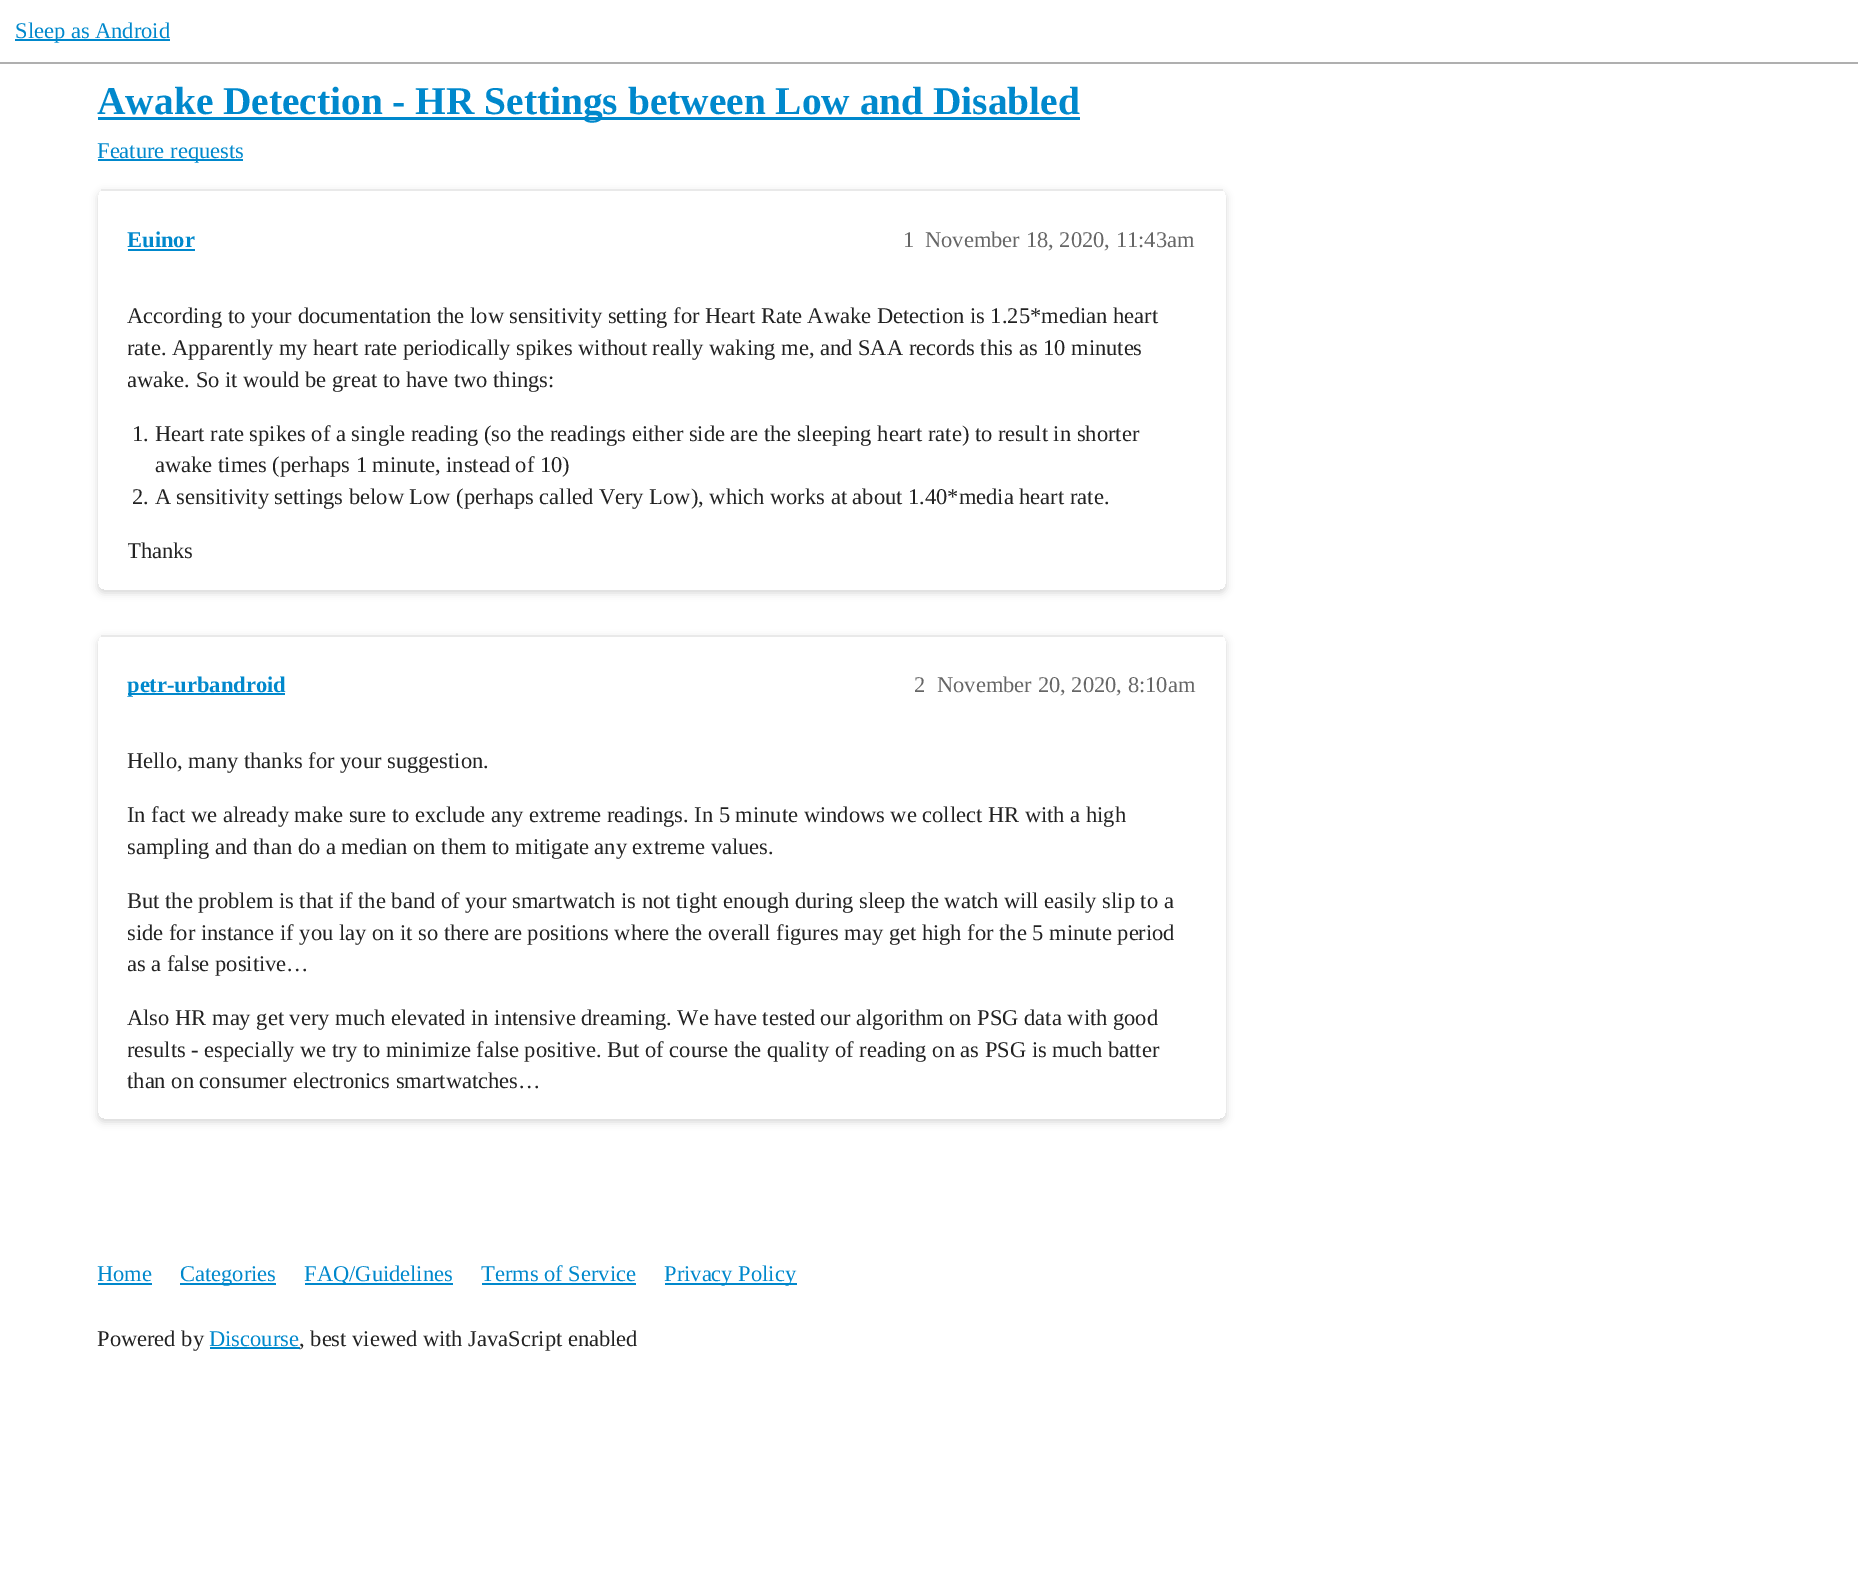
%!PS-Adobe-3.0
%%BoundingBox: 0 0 1858 1588
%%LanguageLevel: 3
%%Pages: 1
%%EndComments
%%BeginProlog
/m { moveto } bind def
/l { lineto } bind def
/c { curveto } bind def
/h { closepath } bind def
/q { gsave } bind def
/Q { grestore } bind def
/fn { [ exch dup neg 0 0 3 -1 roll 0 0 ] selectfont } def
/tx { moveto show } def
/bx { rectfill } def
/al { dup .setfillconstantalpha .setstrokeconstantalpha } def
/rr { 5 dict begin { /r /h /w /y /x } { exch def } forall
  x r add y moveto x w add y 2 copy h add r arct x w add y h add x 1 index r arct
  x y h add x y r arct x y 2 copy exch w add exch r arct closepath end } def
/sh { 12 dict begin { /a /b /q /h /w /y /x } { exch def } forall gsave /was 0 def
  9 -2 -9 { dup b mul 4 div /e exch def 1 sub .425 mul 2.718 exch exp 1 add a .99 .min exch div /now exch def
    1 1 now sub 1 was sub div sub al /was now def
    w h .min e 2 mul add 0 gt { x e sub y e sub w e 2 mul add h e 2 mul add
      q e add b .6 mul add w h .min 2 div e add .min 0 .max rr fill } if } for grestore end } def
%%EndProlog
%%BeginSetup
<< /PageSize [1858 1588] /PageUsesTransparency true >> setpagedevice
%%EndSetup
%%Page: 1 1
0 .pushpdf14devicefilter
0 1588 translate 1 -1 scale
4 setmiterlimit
1 setgray
0 0 1858 1588 bx
0.686 setgray
0 62 1858 2 bx
0 0.533 0.8 setrgbcolor
15 39 155 2 bx
/LiberationSerif-Regular 22.5 fn
(Sleep as Android) 15 38 tx
98 117 982 3 bx
/LiberationSerif-Bold 39.4 fn
(Awake Detection - HR Settings between Low and Disabled) 97 114 tx
98 159 145 2 bx
/LiberationSerif-Regular 22.5 fn
(Feature requests) 97 158 tx
q
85 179 m 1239 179 l 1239 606 l 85 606 l h 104 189 m 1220 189 l 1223.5 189 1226 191.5 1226 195 c 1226 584 l 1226 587.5 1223.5 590 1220 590 c 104 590 l 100.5 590 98 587.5 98 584 c 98 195 l 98 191.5 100.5 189 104 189 c h eoclip newpath
0 setgray
98 192 1128 401 6 4 0.16 sh
Q
0.914 setgray
101 189 1122 2 bx
/LiberationSerif-Bold 22.5 fn
0 0.533 0.8 setrgbcolor
(Euinor) 127 247 tx
128 249 67 2 bx
/LiberationSerif-Regular 22.5 fn
0.4 setgray
(1) 903 247 tx
(November 18, 2020, 11:43am) 925 247 tx
0.133 setgray
(According to your documentation the low sensitivity setting for Heart Rate Awake Detection is 1.25*median heart) 127 323 tx
q
128 279 1068 311 rectclip
(rate. Apparently my heart rate periodically spikes without really waking me, and SAA records this as 10 minutes) 127 355 tx
(awake. So it would be great to have two things:) 127 387 tx
Q
(1. Heart rate spikes of a single reading \(so the readings either side are the sleeping heart rate\) to result in shorter) 132 441 tx
(awake times \(perhaps 1 minute, instead of 10\)) 155 472 tx
(2. A sensitivity settings below Low \(perhaps called Very Low\), which works at about 1.40*media heart rate.) 132 504 tx
q
128 279 1068 311 rectclip
(Thanks) 127 558 tx
Q
q
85 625 m 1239 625 l 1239 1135 l 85 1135 l h 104 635 m 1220 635 l 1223.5 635 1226 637.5 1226 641 c 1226 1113 l 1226 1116.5 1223.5 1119 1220 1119 c 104 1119 l 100.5 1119 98 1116.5 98 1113 c 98 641 l 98 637.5 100.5 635 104 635 c h eoclip newpath
0 setgray
98 638 1128 484 6 4 0.16 sh
Q
0.914 setgray
101 635 1122 2 bx
0 0.533 0.8 setrgbcolor
128 693 157 2 bx
/LiberationSerif-Bold 22.5 fn
(petr-urbandroid) 127 692 tx
/LiberationSerif-Regular 22.5 fn
0.4 setgray
(2) 914 692 tx
(November 20, 2020, 8:10am) 937 692 tx
0.133 setgray
(Hello, many thanks for your suggestion.) 127 768 tx
(In fact we already make sure to exclude any extreme readings. In 5 minute windows we collect HR with a high) 127 822 tx
q
128 723 1068 396 rectclip
(sampling and than do a median on them to mitigate any extreme values.) 127 854 tx
Q
(But the problem is that if the band of your smartwatch is not tight enough during sleep the watch will easily slip to a) 127 908 tx
q
128 723 1068 396 rectclip
(side for instance if you lay on it so there are positions where the overall figures may get high for the 5 minute period) 127 940 tx
(as a false positive…) 127 971 tx
Q
(Also HR may get very much elevated in intensive dreaming. We have tested our algorithm on PSG data with good) 127 1025 tx
q
128 723 1068 396 rectclip
(results - especially we try to minimize false positive. But of course the quality of reading on as PSG is much batter) 127 1057 tx
Q
(than on consumer electronics smartwatches…) 127 1088 tx
0 0.533 0.8 setrgbcolor
(Home) 97 1281 tx
98 1283 54 2 bx
180 1283 96 2 bx
(Categories) 180 1281 tx
305 1283 148 2 bx
(FAQ/Guidelines) 304 1281 tx
(Terms of Service) 481 1281 tx
482 1283 154 2 bx
665 1283 132 2 bx
(Privacy Policy) 664 1281 tx
0.133 setgray
(Powered by) 97 1346 tx
0 0.533 0.8 setrgbcolor
(Discourse) 209 1346 tx
210 1347 90 2 bx
0.133 setgray
(, best viewed with JavaScript enabled) 299 1346 tx
.poppdf14devicefilter showpage
%%EOF
